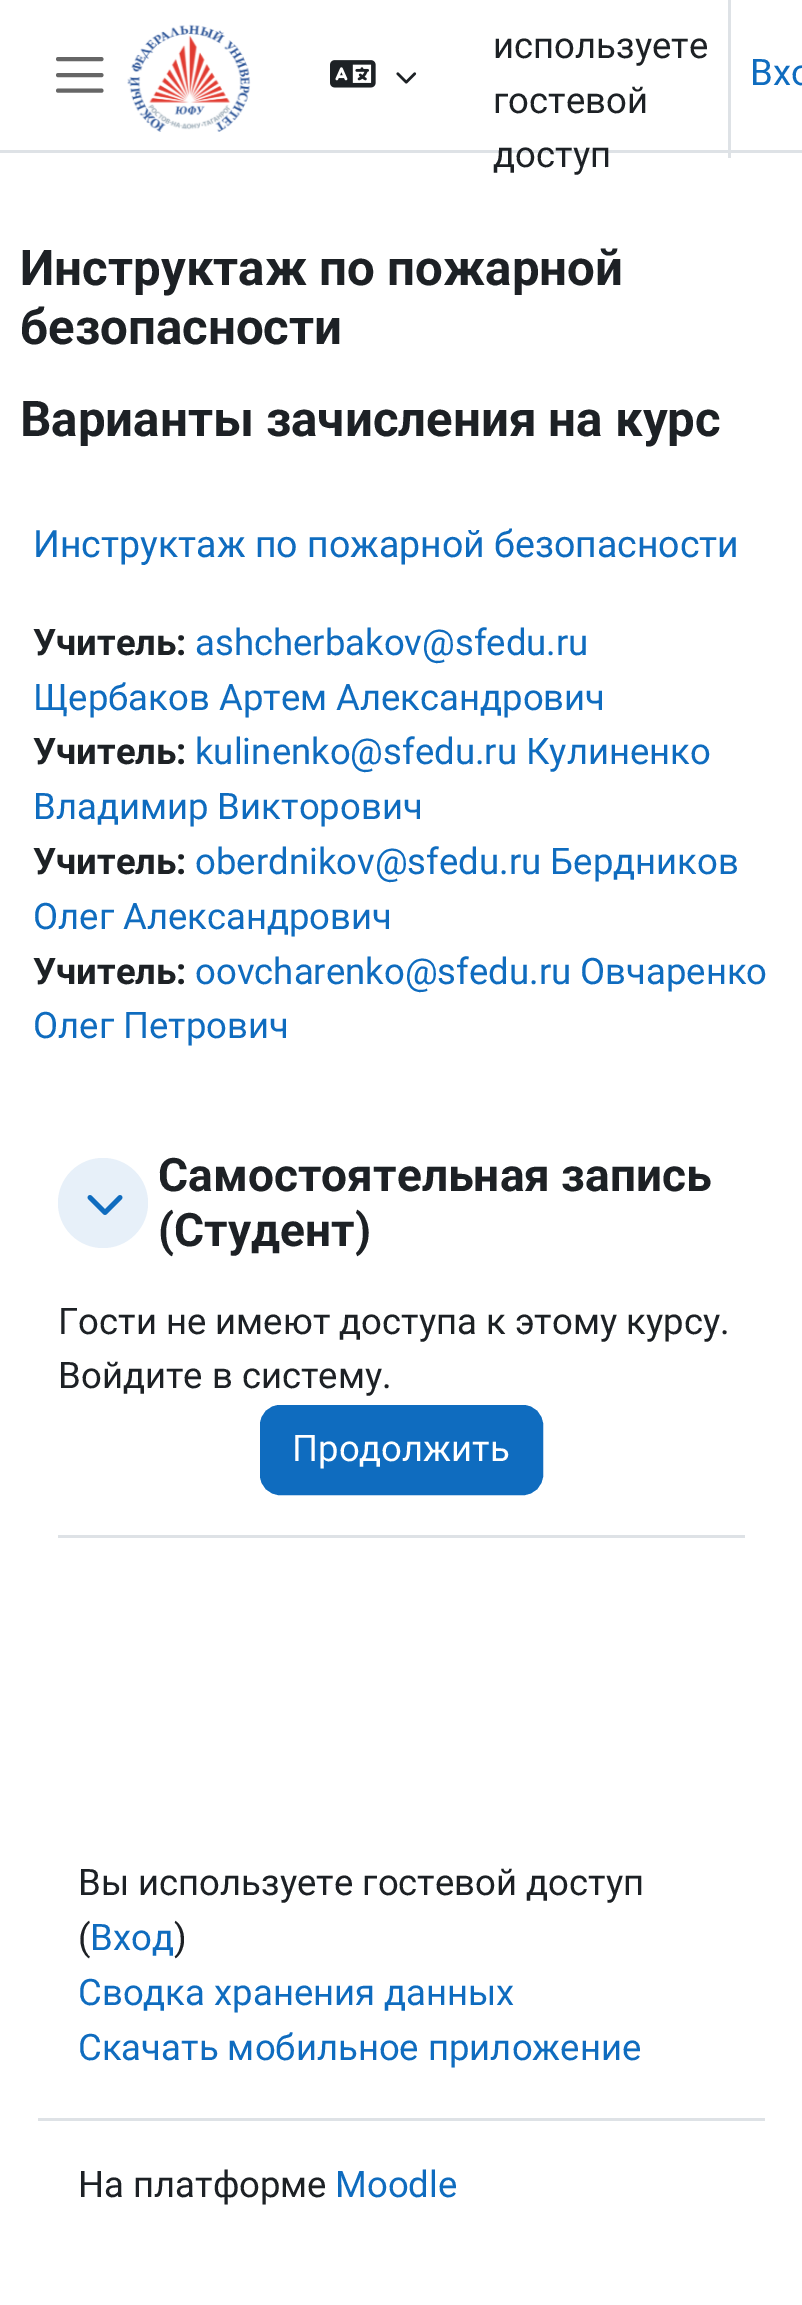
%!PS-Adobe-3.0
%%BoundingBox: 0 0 802 2305
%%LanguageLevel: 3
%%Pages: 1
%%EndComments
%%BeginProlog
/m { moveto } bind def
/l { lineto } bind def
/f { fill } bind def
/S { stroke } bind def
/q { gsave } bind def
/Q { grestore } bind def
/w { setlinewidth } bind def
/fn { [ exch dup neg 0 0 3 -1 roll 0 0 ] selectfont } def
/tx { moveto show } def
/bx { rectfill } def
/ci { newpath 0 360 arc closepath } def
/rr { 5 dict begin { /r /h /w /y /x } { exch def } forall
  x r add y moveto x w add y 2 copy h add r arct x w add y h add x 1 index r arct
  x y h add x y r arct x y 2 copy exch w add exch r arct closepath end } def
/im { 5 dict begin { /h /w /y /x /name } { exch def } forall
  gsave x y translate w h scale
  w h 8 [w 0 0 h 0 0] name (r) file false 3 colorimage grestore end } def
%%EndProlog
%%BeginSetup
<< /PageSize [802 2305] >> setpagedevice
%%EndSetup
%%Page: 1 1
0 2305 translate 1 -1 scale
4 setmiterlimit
1 setgray
0 0 802 2305 bx
0.871 0.886 0.902 setrgbcolor
0 150 802 3 bx
0.4 setgray
4 w
1 setlinecap
58 59 m 101.5 59 l 58 75 m 101.5 75 l 58 90.5 m 101.5 90.5 l S
(image0.raw) 127 24 124 108 im
(image1.raw) 330 60 46 28 im
(image2.raw) 396 72 21 12 im
/Roboto-Regular 36.5 fn
0.114 0.129 0.145 setrgbcolor
(используете) 493 58 tx
0.871 0.886 0.902 setrgbcolor
728 0 3 158 bx
0.059 0.424 0.749 setrgbcolor
(Вхо) 750 85 tx
0.114 0.129 0.145 setrgbcolor
(гостевой) 493 113 tx
(доступ) 493 167 tx
/Roboto-Bold 49.25 fn
(Инструктаж по пожарной) 20 285 tx
(безопасности) 20 344 tx
(Варианты зачисления на курс) 20 436 tx
/Roboto-Regular 37.5 fn
0.059 0.424 0.749 setrgbcolor
(Инструктаж по пожарной безопасности) 33 557 tx
/Roboto-Bold 36.5 fn
0.114 0.129 0.145 setrgbcolor
(Учитель:) 33 655 tx
/Roboto-Regular 36.5 fn
0.059 0.424 0.749 setrgbcolor
(ashcherbakov@sfedu.ru) 195 655 tx
(Щербаков Артем Александрович) 33 710 tx
/Roboto-Bold 36.5 fn
0.114 0.129 0.145 setrgbcolor
(Учитель:) 33 764 tx
/Roboto-Regular 36.5 fn
0.059 0.424 0.749 setrgbcolor
(kulinenko@sfedu.ru Кулиненко) 195 764 tx
(Владимир Викторович) 33 819 tx
/Roboto-Bold 36.5 fn
0.114 0.129 0.145 setrgbcolor
(Учитель:) 33 874 tx
/Roboto-Regular 36.5 fn
0.059 0.424 0.749 setrgbcolor
(oberdnikov@sfedu.ru Бердников) 195 874 tx
(Олег Александрович) 33 929 tx
/Roboto-Bold 36.5 fn
0.114 0.129 0.145 setrgbcolor
(Учитель:) 33 984 tx
/Roboto-Regular 36.5 fn
0.059 0.424 0.749 setrgbcolor
(oovcharenko@sfedu.ru Овчаренко) 195 984 tx
(Олег Петрович) 33 1038 tx
0.871 0.886 0.902 setrgbcolor
58 1535 687 3 bx
0.906 0.941 0.976 setrgbcolor
103 1203 45 ci f
(image3.raw) 87 1195 36 20 im
/Roboto-Bold 46.1 fn
0.114 0.129 0.145 setrgbcolor
(Самостоятельная запись) 158 1191 tx
(\(Студент\)) 158 1246 tx
/Roboto-Regular 36.5 fn
(Гости не имеют доступа к этому курсу.) 58 1334 tx
(Войдите в систему.) 58 1388 tx
0.059 0.424 0.749 setrgbcolor
261.5 1406.5 280 87 18.5 rr q f Q
3 w
0 setlinecap
S
1 setgray
(Продолжить) 292 1461 tx
0.871 0.886 0.902 setrgbcolor
38 2118 727 3 bx
0.114 0.129 0.145 setrgbcolor
(Вы используете гостевой доступ) 78 1895 tx
(\() 78 1950 tx
0.059 0.424 0.749 setrgbcolor
(Вход) 90 1950 tx
0.114 0.129 0.145 setrgbcolor
(\)) 174 1950 tx
0.059 0.424 0.749 setrgbcolor
(Сводка хранения данных) 78 2005 tx
(Скачать мобильное приложение) 78 2060 tx
0.114 0.129 0.145 setrgbcolor
(На платформе) 78 2197 tx
0.059 0.424 0.749 setrgbcolor
(Moodle) 335 2197 tx
showpage
%%EOF
